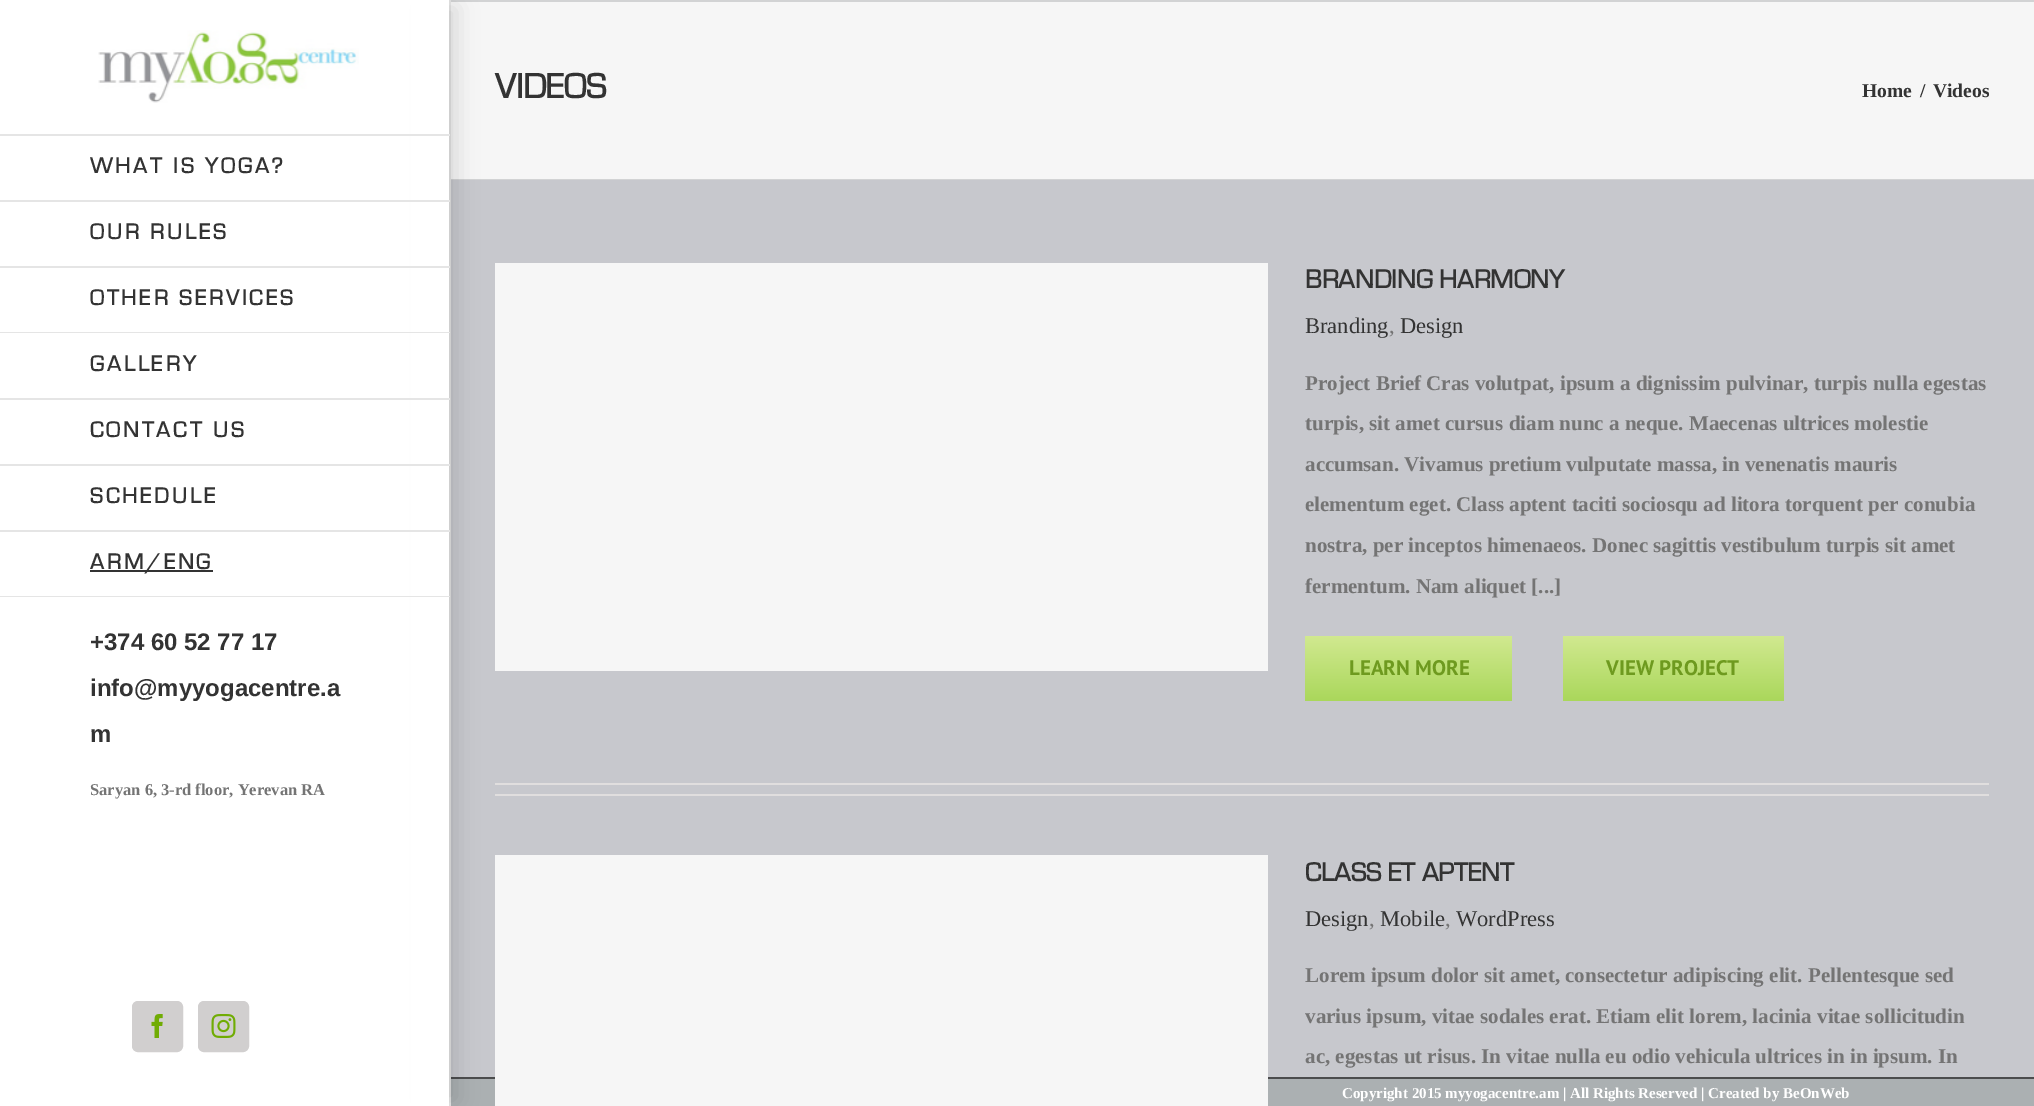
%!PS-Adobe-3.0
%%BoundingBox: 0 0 2034 1106
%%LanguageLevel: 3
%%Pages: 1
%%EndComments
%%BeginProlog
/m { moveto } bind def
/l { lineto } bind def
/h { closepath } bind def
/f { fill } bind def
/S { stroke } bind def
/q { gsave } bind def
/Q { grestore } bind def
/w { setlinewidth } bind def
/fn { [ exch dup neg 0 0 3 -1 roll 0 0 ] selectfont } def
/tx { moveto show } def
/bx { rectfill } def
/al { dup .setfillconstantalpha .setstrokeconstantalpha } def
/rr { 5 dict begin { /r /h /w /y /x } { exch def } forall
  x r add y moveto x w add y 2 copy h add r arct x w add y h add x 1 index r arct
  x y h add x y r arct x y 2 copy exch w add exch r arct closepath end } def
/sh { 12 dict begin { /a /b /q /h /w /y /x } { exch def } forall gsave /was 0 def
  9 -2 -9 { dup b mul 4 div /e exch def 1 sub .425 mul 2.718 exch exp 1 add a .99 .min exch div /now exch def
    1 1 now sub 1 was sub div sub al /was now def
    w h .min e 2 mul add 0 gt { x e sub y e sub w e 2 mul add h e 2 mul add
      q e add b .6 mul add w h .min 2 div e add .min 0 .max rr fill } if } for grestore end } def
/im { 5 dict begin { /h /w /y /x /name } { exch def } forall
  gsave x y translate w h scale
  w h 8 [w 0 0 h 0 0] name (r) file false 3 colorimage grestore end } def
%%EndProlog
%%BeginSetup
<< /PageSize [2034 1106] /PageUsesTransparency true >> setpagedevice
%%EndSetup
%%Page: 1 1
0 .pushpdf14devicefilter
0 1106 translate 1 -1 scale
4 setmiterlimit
0.965 setgray
0 0 2034 1106 bx
0.824 0.827 0.831 setrgbcolor
450 0 1584 2 bx
450 179 1584 1 bx
/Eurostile-Bold 36 fn
0.2 setgray
(VIDEOS) 495 98 tx
/LiberationSerif-Bold 19.5 fn
(Home) 1862 97 tx
(/) 1920 97 tx
(Videos) 1933 97 tx
1 setgray
0 0 449 1106 bx
0.898 setgray
449 0 2 1106 bx
0.78 0.784 0.804 setrgbcolor
451 180 1583 897 bx
0.671 0.69 0.698 setrgbcolor
451 1079 1583 27 bx
0.294 0.298 0.302 setrgbcolor
451 1077 1583 2 bx
q
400 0 m 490 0 l 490 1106 l 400 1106 l h 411 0 m 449 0 l 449 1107 l 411 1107 l h eoclip newpath
0 setgray
434 8 22 1092 0 11 0.14 sh
Q
(image0.raw) 98 30 261 73 im
0.898 setgray
0 134 450 2 bx
0 200 450 2 bx
/Eurostile-Bold 22.5 fn
0.2 setgray
90 173 m 3 0 (WHAT IS YOGA?) ashow
0.898 setgray
0 266 450 2 bx
0.2 setgray
90 239 m 3 0 (OUR RULES) ashow
0.898 setgray
0 332 450 1 bx
0.2 setgray
90 305 m 3 0 (OTHER SERVICES) ashow
0.898 setgray
0 398 450 2 bx
0.2 setgray
90 371 m 3 0 (GALLERY) ashow
0.898 setgray
0 464 450 2 bx
0.2 setgray
90 437 m 3 0 (CONTACT US) ashow
0.898 setgray
0 530 450 2 bx
0.2 setgray
90 503 m 3 0 (SCHEDULE) ashow
0.898 setgray
0 596 450 1 bx
0.2 setgray
90 570 123 2 bx
90 569 m 3 0 (ARM/ENG) ashow
/LiberationSans-Bold 24 fn
(+374 60 52 77 17) 90 650 tx
(info@myyogacentre.a) 90 696 tx
(m) 90 742 tx
/LiberationSerif-Bold 16.5 fn
0.455 setgray
(Saryan 6, 3-rd floor, Yerevan RA) 90 795 tx
0.82 0.812 0.812 setrgbcolor
133 1002 49 49 5 rr q f Q
2 w
S
(image1.raw) 151 1014 12 24 im
199 1002 49 49 5 rr q f Q
S
(image2.raw) 211 1014 25 24 im
0.965 setgray
495 263 773 408 bx
/Eurostile-Bold 27 fn
0.2 setgray
(BRANDING HARMONY) 1305 288 tx
/LiberationSerif-Regular 22.5 fn
(Branding) 1305 333 tx
0.455 setgray
(,) 1389 333 tx
0.2 setgray
(Design) 1400 333 tx
/LiberationSerif-Bold 21 fn
0.455 setgray
(Project Brief Cras volutpat, ipsum a dignissim pulvinar, turpis nulla egestas) 1305 390 tx
(turpis, sit amet cursus diam nunc a neque. Maecenas ultrices molestie) 1305 430 tx
(accumsan. Vivamus pretium vulputate massa, in venenatis mauris) 1305 471 tx
(elementum eget. Class aptent taciti sociosqu ad litora torquent per conubia) 1305 511 tx
(nostra, per inceptos himenaeos. Donec sagittis vestibulum turpis sit amet) 1305 552 tx
(fermentum. Nam aliquet [...]) 1305 593 tx
q 1305 636 207 65 3 rr clip newpath
<< /ShadingType 2 /ColorSpace /DeviceRGB /Coords [1409 701 1409 636] /Extend [true true] /Function << /FunctionType 2 /Domain [0 1] /C0 [0.667 0.843 0.357] /C1 [0.82 0.914 0.565] /N 1 >> >> shfill Q
/PTSans-Bold 21 fn
0.431 0.604 0.122 setrgbcolor
(LEARN MORE) 1349 675 tx
q 1563 636 221 65 3 rr clip newpath
<< /ShadingType 2 /ColorSpace /DeviceRGB /Coords [1673 701 1673 636] /Extend [true true] /Function << /FunctionType 2 /Domain [0 1] /C0 [0.667 0.843 0.357] /C1 [0.82 0.914 0.565] /N 1 >> >> shfill Q
(VIEW PROJECT) 1606 675 tx
0.878 0.871 0.871 setrgbcolor
495 783 1494 2 bx
495 794 1494 2 bx
0.965 setgray
495 855 773 251 bx
/Eurostile-Bold 27 fn
0.2 setgray
(CLASS ET APTENT) 1305 881 tx
/LiberationSerif-Regular 22.5 fn
(Design) 1305 926 tx
0.455 setgray
(,) 1369 926 tx
0.2 setgray
(Mobile) 1380 926 tx
0.455 setgray
(,) 1445 926 tx
0.2 setgray
(WordPress) 1456 926 tx
/LiberationSerif-Bold 21 fn
0.455 setgray
(Lorem ipsum dolor sit amet, consectetur adipiscing elit. Pellentesque sed) 1305 982 tx
(varius ipsum, vitae sodales erat. Etiam elit lorem, lacinia vitae sollicitudin) 1305 1023 tx
(ac, egestas ut risus. In vitae nulla eu odio vehicula ultrices in in ipsum. In) 1305 1063 tx
/LiberationSerif-Bold 15 fn
1 setgray
(Copyright 2015 myyogacentre.am | All Rights Reserved | Created by BeOnWeb) 1342 1098 tx
.poppdf14devicefilter showpage
%%EOF
